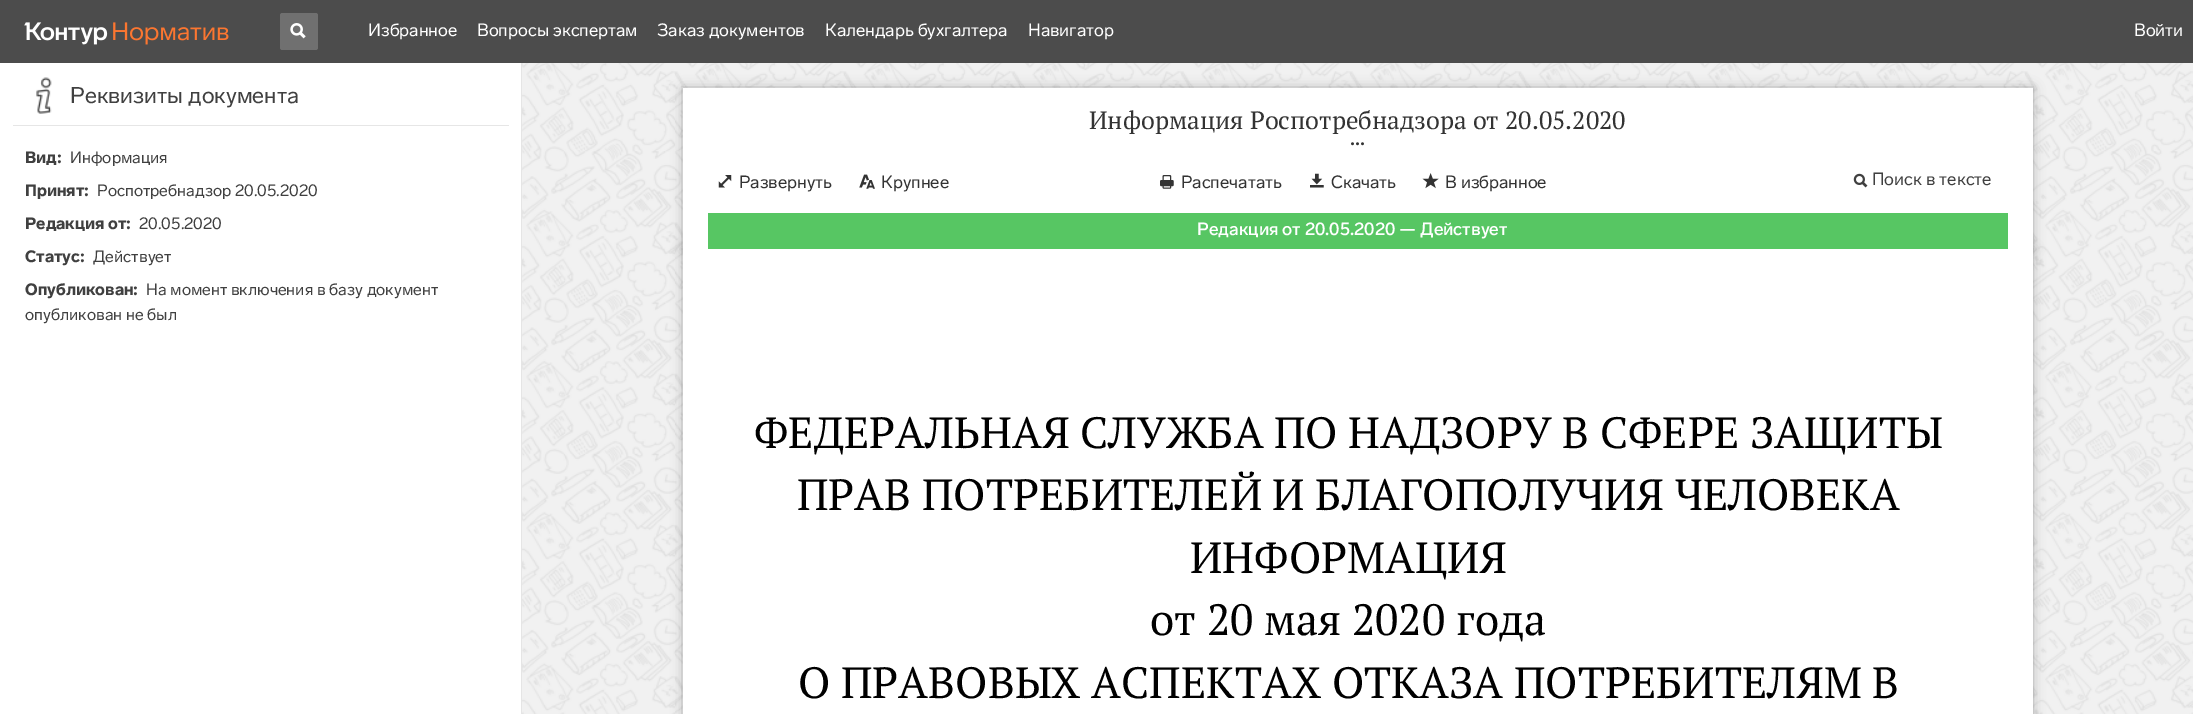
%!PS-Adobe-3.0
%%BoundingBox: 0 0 2193 714
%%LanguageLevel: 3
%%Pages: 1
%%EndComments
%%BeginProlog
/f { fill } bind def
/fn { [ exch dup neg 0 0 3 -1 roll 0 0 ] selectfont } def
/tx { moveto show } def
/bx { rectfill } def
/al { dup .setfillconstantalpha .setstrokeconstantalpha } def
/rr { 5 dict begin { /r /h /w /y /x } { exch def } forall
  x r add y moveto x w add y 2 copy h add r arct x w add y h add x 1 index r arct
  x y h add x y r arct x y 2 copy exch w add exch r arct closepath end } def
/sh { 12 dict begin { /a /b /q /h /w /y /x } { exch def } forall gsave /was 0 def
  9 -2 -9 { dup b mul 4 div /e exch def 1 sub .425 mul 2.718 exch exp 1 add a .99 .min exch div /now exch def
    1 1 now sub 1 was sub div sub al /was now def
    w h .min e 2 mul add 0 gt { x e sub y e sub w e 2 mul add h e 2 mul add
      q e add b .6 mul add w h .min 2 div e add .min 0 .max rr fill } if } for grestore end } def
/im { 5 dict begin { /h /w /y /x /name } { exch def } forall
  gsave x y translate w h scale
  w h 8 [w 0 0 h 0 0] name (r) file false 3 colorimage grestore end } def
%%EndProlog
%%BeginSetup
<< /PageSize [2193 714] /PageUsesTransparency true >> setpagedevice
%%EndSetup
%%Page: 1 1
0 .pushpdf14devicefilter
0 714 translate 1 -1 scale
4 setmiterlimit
1 setgray
0 0 2193 714 bx
(image0.raw) 522 63 1671 651 im
0.298 setgray
0 0 2193 63 bx
(image1.raw) 24 22 84 23 im
(image2.raw) 113 22 116 23 im
0.439 setgray
280 13 38 37 2.5 rr f
(image3.raw) 290 23 16 16 im
/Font-Regular 17.5 fn
1 setgray
(Избранное) 368 36 tx
(Вопросы экспертам) 477 36 tx
(Заказ документов) 657 36 tx
(Календарь бухгалтера) 825 36 tx
(Навигатор) 1028 36 tx
(Войти) 2134 36 tx
0.898 setgray
521 63 1 651 bx
(image4.raw) 36 77 16 37 im
/Font-Regular 22.5 fn
0.251 setgray
(Реквизиты документа) 70 103 tx
0.902 setgray
13 125 496 1 bx
/Font-Black 16.25 fn
0.251 setgray
(Вид:) 25 163 tx
/Font-Regular 16.25 fn
(Информация) 70 163 tx
/Font-Black 16.25 fn
(Принят:) 25 196 tx
/Font-Regular 16.25 fn
(Роспотребнадзор 20.05.2020) 97 196 tx
/Font-Black 16.25 fn
(Редакция от:) 25 229 tx
/Font-Regular 16.25 fn
(20.05.2020) 139 229 tx
/Font-Black 16.25 fn
(Статус:) 25 262 tx
/Font-Regular 16.25 fn
(Действует) 93 262 tx
/Font-Black 16.25 fn
(Опубликован:) 25 295 tx
/Font-Regular 16.25 fn
(На момент включения в базу документ) 146 295 tx
(опубликован не был) 25 320 tx
0 setgray
683 88 1350 161 0 6 0.23 sh
0.05 al
681.5 86.5 1352 163 rectstroke
1 al
683 249 1350 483 0 6 0.23 sh
0.05 al
681.5 248.5 1352 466 rectstroke
1 al
1 setgray
683 88 1350 626 bx
/PTSerif-Regular 25 fn
0.2 setgray
(Информация Роспотребнадзора от 20.05.2020) 1089 129 tx
(image5.raw) 1351 142 13 4 im
(image6.raw) 718 175 14 13 im
/Font-Regular 17.5 fn
(Развернуть) 739 188 tx
(image7.raw) 859 174 16 15 im
(Крупнее) 881 188 tx
(image8.raw) 1160 175 14 14 im
(Распечатать) 1181 188 tx
(image9.raw) 1310 173 14 15 im
(Скачать) 1331 188 tx
(image10.raw) 1422 173 17 16 im
(В избранное) 1445 188 tx
(image11.raw) 1853 173 15 15 im
0.251 setgray
(Поиск в тексте) 1872 185 tx
0.341 0.776 0.388 setrgbcolor
708 213 1300 36 bx
/Font-Medium 17.5 fn
1 setgray
(Редакция от 20.05.2020 — Действует) 1197 235 tx
/PTSerif-Regular 43.75 fn
0 setgray
(ФЕДЕРАЛЬНАЯ СЛУЖБА ПО НАДЗОРУ В СФЕРЕ ЗАЩИТЫ) 754 448 tx
(ПРАВ ПОТРЕБИТЕЛЕЙ И БЛАГОПОЛУЧИЯ ЧЕЛОВЕКА) 797 510 tx
(ИНФОРМАЦИЯ) 1190 573 tx
(от 20 мая 2020 года) 1150 635 tx
(О ПРАВОВЫХ АСПЕКТАХ ОТКАЗА ПОТРЕБИТЕЛЯМ В) 798 698 tx
.poppdf14devicefilter showpage
%%EOF
